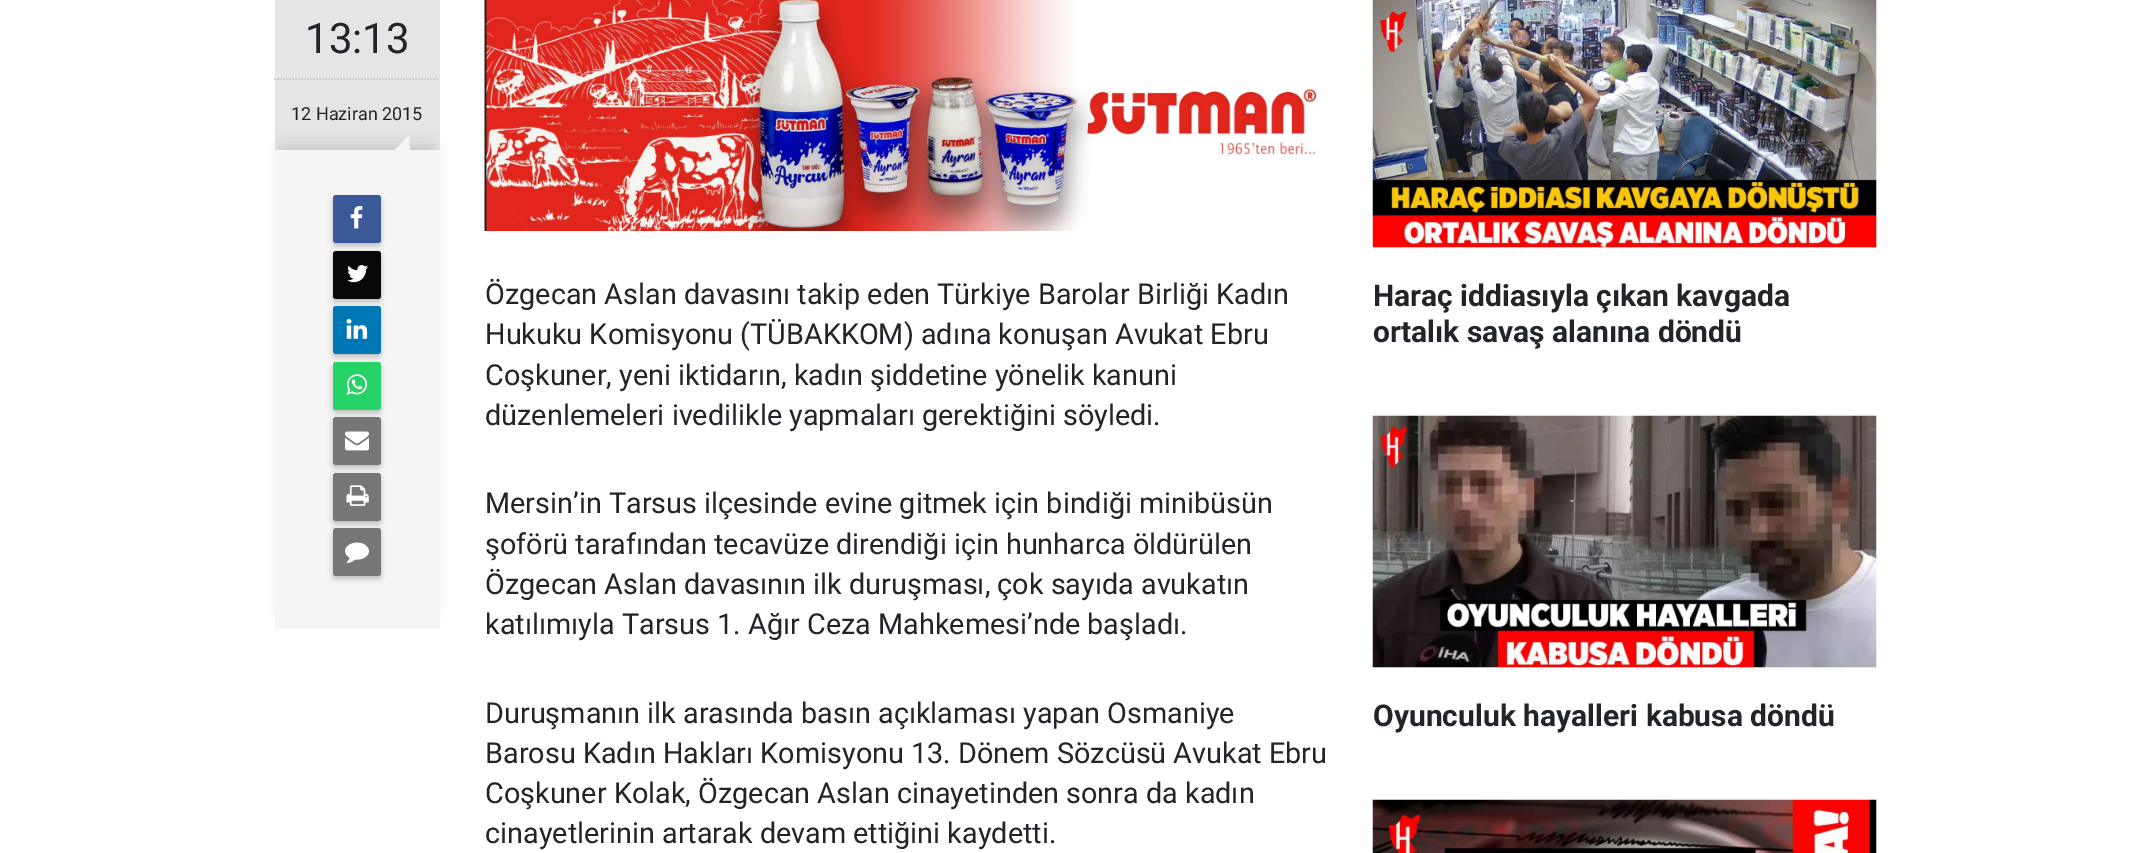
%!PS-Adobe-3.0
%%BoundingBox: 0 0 2150 853
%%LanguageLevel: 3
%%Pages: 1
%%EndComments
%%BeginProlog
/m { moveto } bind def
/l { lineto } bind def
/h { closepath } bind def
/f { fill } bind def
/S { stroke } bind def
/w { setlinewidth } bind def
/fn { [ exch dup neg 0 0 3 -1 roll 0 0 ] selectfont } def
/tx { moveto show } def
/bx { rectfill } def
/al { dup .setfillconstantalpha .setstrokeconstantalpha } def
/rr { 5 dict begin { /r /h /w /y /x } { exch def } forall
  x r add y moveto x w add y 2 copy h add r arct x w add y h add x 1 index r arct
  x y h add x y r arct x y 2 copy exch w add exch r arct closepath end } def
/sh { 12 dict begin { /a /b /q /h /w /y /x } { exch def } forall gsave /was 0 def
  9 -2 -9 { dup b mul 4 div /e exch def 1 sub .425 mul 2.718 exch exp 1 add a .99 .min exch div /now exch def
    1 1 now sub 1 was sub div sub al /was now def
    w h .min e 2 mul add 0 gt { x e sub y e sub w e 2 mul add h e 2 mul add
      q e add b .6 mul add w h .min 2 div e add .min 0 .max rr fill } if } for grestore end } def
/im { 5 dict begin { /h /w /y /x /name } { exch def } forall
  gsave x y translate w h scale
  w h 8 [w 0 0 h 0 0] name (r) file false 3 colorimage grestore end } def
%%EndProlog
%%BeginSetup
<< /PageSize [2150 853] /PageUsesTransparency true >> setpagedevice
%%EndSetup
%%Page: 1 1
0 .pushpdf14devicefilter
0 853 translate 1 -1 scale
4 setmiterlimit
1 setgray
0 0 2150 853 bx
0.898 setgray
275 0 165 150 bx
/Roboto-Regular 42 fn
0.129 0.145 0.161 setrgbcolor
(13:13) 305 53 tx
0.765 setgray
1.5 w
[1.5 1.5] 0 setdash
274.5 79 m 439.5 79 l S
/Roboto-Regular 18 fn
0.129 0.145 0.161 setrgbcolor
(12 Haziran 2015) 291 120 tx
0 setgray
282 147 150 464 0 7.5 0.15 sh
0.961 setgray
275 150 165 479 bx
409.5 150 m 394.5 150 l 409.5 135 l h f
0.196 setgray
333 198 48 48 3 3 0.3 sh
0.231 0.349 0.6 setrgbcolor
333 195 48 48 3 rr f
(image0.raw) 350 206 13 23 im
0.196 setgray
333 254 48 48 3 3 0.3 sh
0.031 setgray
333 251 48 48 3 rr f
(image1.raw) 347 265 21 18 im
0.196 setgray
333 309 48 48 3 3 0.3 sh
0 0.467 0.71 setrgbcolor
333 306 48 48 3 rr f
(image2.raw) 346 319 22 20 im
0.196 setgray
333 365 48 48 3 3 0.3 sh
0.145 0.827 0.4 setrgbcolor
333 362 48 48 3 rr f
(image3.raw) 346 374 22 21 im
0.196 setgray
333 420 48 48 3 3 0.3 sh
0.463 setgray
333 417 48 48 3 rr f
(image4.raw) 345 431 24 20 im
0.196 setgray
333 476 48 48 3 3 0.3 sh
0.463 setgray
333 473 48 48 3 rr f
(image5.raw) 346 485 23 21 im
0.196 setgray
333 531 48 48 3 3 0.3 sh
0.463 setgray
333 528 48 48 3 rr f
(image6.raw) 345 542 24 22 im
(image7.raw) 484 0 837 231 im
/Roboto-Regular 28.8 fn
0.129 0.145 0.161 setrgbcolor
(Özgecan Aslan davasını takip eden Türkiye Barolar Birliği Kadın) 485 304 tx
(Hukuku Komisyonu \(TÜBAKKOM\) adına konuşan Avukat Ebru) 485 344 tx
(Coşkuner, yeni iktidarın, kadın şiddetine yönelik kanuni) 485 385 tx
(düzenlemeleri ivedilikle yapmaları gerektiğini söyledi.) 485 425 tx
(Mersin’in Tarsus ilçesinde evine gitmek için bindiği minibüsün) 485 513 tx
(şoförü tarafından tecavüze direndiği için hunharca öldürülen) 485 554 tx
(Özgecan Aslan davasının ilk duruşması, çok sayıda avukatın) 485 594 tx
(katılımıyla Tarsus 1. Ağır Ceza Mahkemesi’nde başladı.) 485 634 tx
(Duruşmanın ilk arasında basın açıklaması yapan Osmaniye) 485 723 tx
(Barosu Kadın Hakları Komisyonu 13. Dönem Sözcüsü Avukat Ebru) 485 763 tx
(Coşkuner Kolak, Özgecan Aslan cinayetinden sonra da kadın) 485 803 tx
(cinayetlerinin artarak devam ettiğini kaydetti.) 485 843 tx
0.973 setgray
1373 0 504 248 bx
(image8.raw) 1372 0 505 248 im
/Roboto-Bold 30 fn
0.129 0.145 0.161 setrgbcolor
(Haraç iddiasıyla çıkan kavgada) 1373 306 tx
(ortalık savaş alanına döndü) 1373 342 tx
0.973 setgray
1373 416 504 252 bx
(image9.raw) 1372 415 505 253 im
0.129 0.145 0.161 setrgbcolor
(Oyunculuk hayalleri kabusa döndü) 1373 726 tx
0.973 setgray
1876 800 1 53 bx
(image10.raw) 1372 799 505 54 im
.poppdf14devicefilter showpage
%%EOF
